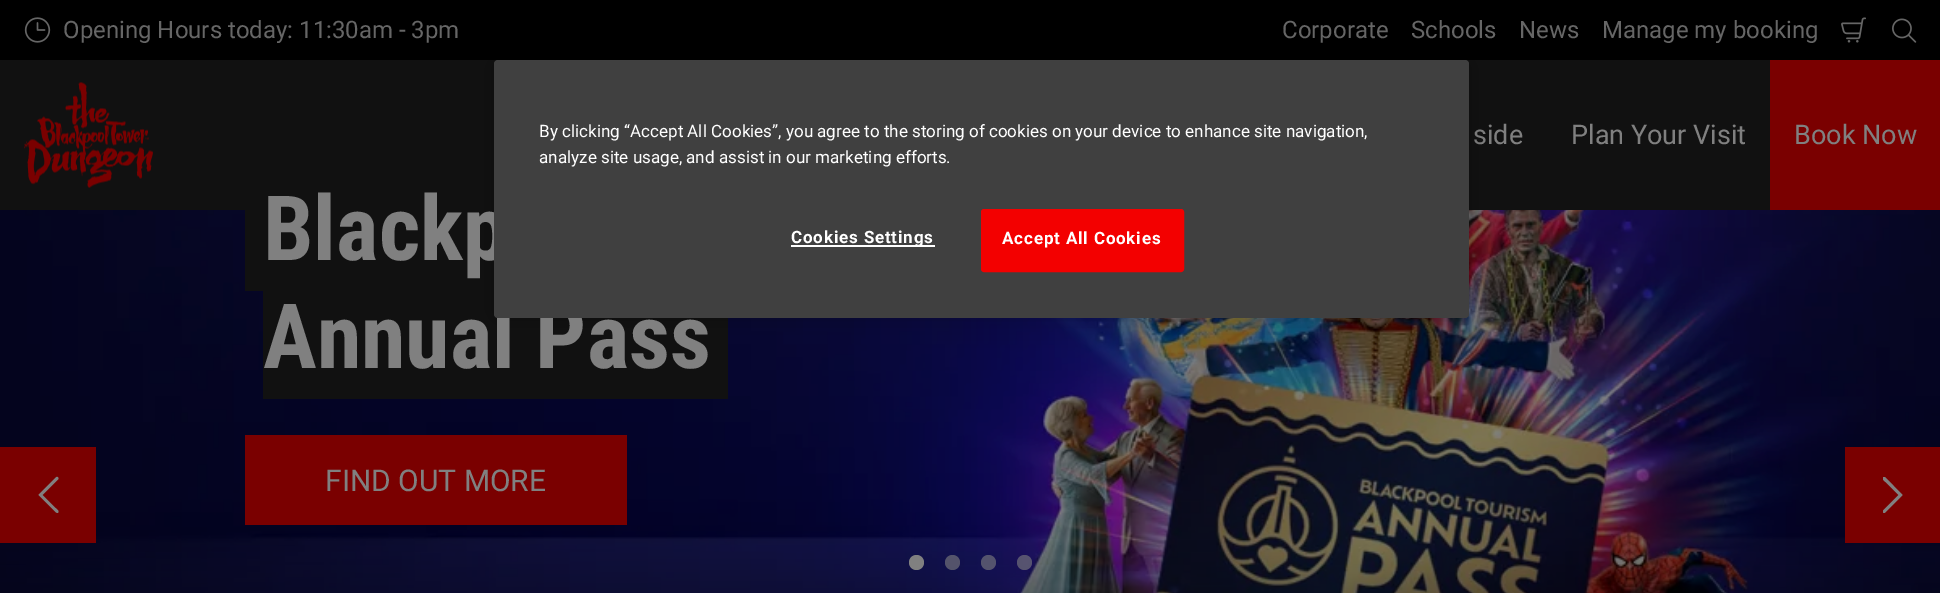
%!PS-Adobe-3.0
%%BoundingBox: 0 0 1940 593
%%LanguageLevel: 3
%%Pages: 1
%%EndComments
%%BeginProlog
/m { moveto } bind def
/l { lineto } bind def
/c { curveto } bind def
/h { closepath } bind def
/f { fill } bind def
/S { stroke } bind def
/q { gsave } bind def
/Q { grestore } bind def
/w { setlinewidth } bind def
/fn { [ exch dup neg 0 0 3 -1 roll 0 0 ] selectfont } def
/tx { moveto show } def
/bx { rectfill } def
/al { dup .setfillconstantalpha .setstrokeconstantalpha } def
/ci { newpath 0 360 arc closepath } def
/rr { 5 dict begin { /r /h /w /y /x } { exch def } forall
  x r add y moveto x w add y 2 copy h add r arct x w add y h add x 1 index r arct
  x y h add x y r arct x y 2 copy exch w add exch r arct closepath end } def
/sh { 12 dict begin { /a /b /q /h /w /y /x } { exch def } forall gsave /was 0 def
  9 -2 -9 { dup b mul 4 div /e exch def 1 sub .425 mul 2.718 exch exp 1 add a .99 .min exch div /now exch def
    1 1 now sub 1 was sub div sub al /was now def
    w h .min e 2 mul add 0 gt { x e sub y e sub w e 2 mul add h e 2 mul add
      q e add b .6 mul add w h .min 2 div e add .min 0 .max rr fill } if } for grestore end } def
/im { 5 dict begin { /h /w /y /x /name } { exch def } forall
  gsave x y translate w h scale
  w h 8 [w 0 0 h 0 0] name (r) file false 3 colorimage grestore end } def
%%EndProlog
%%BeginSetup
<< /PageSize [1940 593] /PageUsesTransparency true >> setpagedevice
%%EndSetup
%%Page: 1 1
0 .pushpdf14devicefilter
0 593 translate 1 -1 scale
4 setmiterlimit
1 setgray
0 0 1940 593 bx
0 setgray
-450 -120 m -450 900 l 0 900 l 0 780 l 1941 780 l 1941 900 l 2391 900 l 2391 -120 l h f
(image0.raw) 24 17 27 26 im
/Roboto-Regular 24 fn
0.4 setgray
(Opening Hours today: 11:30am - 3pm) 63 38 tx
(Corporate) 1282 38 tx
(Schools) 1411 38 tx
(News) 1519 38 tx
(Manage my booking) 1602 38 tx
(image1.raw) 1841 17 25 26 im
(image2.raw) 1892 18 25 25 im
0.067 setgray
0 60 1770 150 bx
(image3.raw) 24 82 129 106 im
/Roboto-Regular 27 fn
0.502 setgray
(side) 1473 144 tx
(Plan Your Visit) 1571 144 tx
0.478 0 0 setrgbcolor
1770 60 170 150 bx
0.502 setgray
(Book Now) 1794 144 tx
(image4.raw) 0 210 1940 383 im
0.067 setgray
245 210 249 81 bx
263 284 465 115 bx
0 setgray
494 60 975 258 4 13.5 0.2 sh
/RobotoCondensed-Bold 90 fn
0.502 setgray
(Blackp) 263 260 tx
(Annual Pass) 263 368 tx
0.251 setgray
494 60 975 258 4 rr f
/Roboto-Regular 17.05 fn
1 setgray
(By clicking “Accept All Cookies”, you agree to the storing of cookies on your device to enhance site navigation,) 539 137 tx
(analyze site usage, and assist in our marketing efforts.) 539 163 tx
791 245 144 2 bx
/Roboto-Bold 17.05 fn
791 243 m 0.8 0 (Cookies Settings) ashow
0.953 0 0 setrgbcolor
982 210 201 61 2 rr q f Q
2 w
S
1 setgray
1002 244 m 0.8 0 (Accept All Cookies) ashow
0.478 0 0 setrgbcolor
0 447 96 96 bx
0.502 setgray
58 479.5 m 59 478.5 58 476.5 56.5 477 c 55.5 477.5 40.5 493 38.5 495 c 56 512.5 l 57.5 513 l 60.5 511.5 56 508.5 55.5 508 c 42.5 495 l h f
0.478 0 0 setrgbcolor
245 435 382 90 bx
/Roboto-Regular 30 fn
0.502 setgray
(FIND OUT MORE) 325 491 tx
0.478 0 0 setrgbcolor
1845 447 95 96 bx
q
1883 477 21 36 rectclip
0.502 setgray
1883 510.5 m 1882 511.5 1883 513 1884.5 513 c 1885.5 512.5 1900.5 497 1902.5 495 c 1885 477 l 1883.5 477 l 1880.5 478.5 1885 481.5 1885.5 482 c 1898.5 495 l h f
Q
0.502 setgray
916.5 562.5 7.5 ci f
0.6 al
952.5 562.5 7.5 ci f
988.5 562.5 7.5 ci f
1024.5 562.5 7.5 ci f
.poppdf14devicefilter showpage
%%EOF
